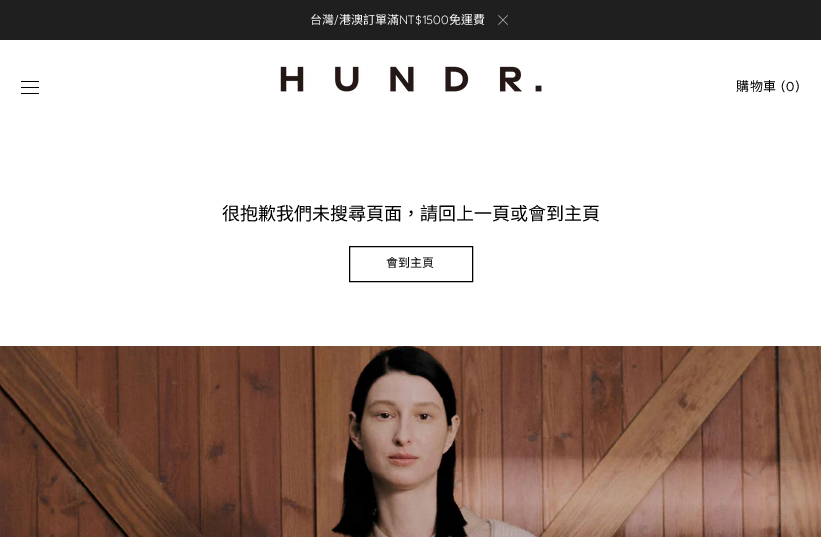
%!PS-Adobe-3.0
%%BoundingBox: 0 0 821 537
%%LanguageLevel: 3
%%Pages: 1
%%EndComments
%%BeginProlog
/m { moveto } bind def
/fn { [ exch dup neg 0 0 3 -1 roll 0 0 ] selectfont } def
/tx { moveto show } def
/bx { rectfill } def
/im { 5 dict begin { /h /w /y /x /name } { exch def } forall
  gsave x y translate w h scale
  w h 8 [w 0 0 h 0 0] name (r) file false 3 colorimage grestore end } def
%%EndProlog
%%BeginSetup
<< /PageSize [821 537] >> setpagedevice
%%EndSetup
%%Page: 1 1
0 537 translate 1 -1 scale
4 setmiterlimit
1 setgray
0 0 821 537 bx
0.122 setgray
0 0 821 40 bx
/NotoSansCJKTC-Regular 12 fn
1 setgray
(台灣) 310 24 tx
/Figtree-Light 12 fn
(/) 334 24 tx
/NotoSansCJKTC-Regular 12 fn
(港澳訂單滿) 339 24 tx
/Figtree-Light 12 fn
(NT$1500) 399 24 tx
/NotoSansCJKTC-Regular 12 fn
(免運費) 449 24 tx
(image0.raw) 498 15 10 10 im
0 setgray
21 81 18 1 bx
21 87 18 1 bx
21 93 18 1 bx
(image1.raw) 280 66 262 26 im
/NotoSansCJKTC-Regular 13 fn
736 91 m 0.5 0 (購物車) ashow
/Figtree-Regular 13 fn
781 91 m 0.5 0 (\(0\)) ashow
/NotoSansCJKTC-Regular 18 fn
(很抱歉我們未搜尋頁面，請回上一頁或會到主頁) 222 220 tx
349.5 246.5 123 35 rectstroke
/NotoSansCJKTC-Regular 12 fn
(會到主頁) 386 267 tx
(image2.raw) 0 346 821 191 im
showpage
%%EOF
